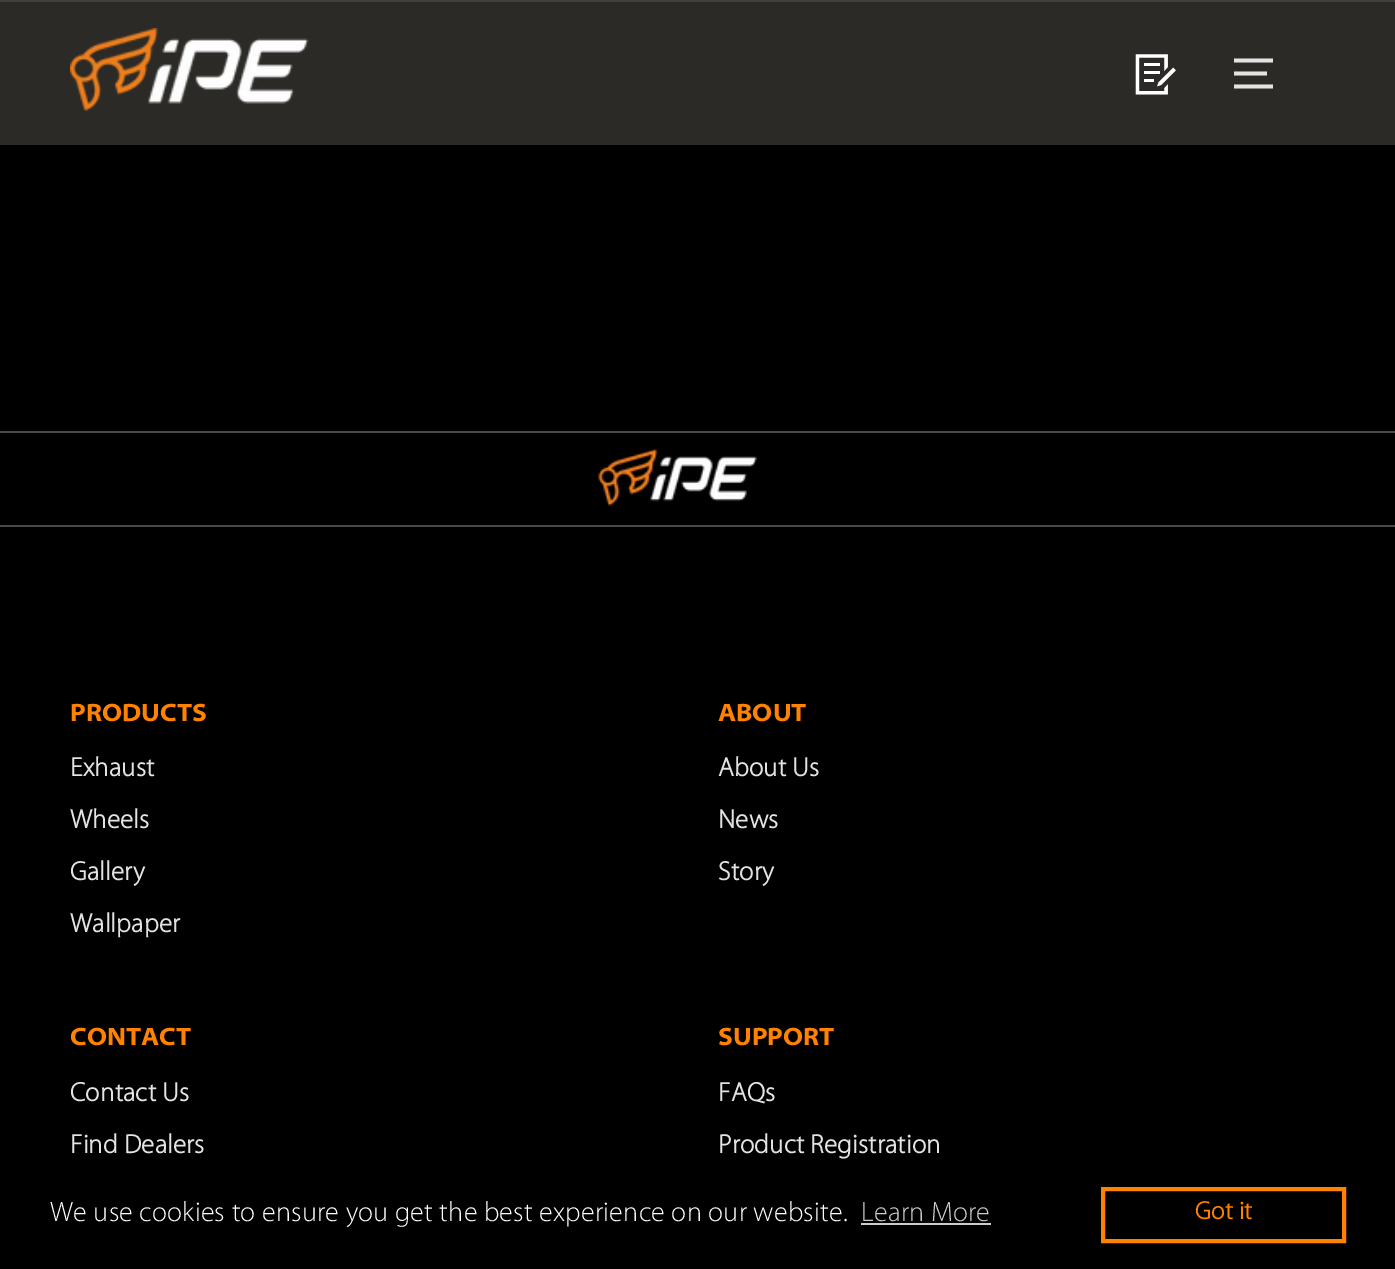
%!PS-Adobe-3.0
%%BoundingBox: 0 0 1395 1269
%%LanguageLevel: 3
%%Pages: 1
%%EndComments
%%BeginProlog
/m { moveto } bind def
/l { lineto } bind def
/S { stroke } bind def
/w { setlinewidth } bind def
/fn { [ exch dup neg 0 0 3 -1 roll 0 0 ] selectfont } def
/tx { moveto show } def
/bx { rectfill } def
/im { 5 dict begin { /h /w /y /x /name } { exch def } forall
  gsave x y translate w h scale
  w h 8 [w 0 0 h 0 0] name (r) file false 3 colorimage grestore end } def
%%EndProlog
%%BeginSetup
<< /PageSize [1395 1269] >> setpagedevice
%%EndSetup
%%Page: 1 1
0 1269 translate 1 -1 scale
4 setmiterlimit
0 setgray
0 0 1395 1269 bx
0.169 0.165 0.153 setrgbcolor
0 2 1395 143 bx
0.251 0.247 0.239 setrgbcolor
0 0 1395 2 bx
(image0.raw) 70 28 239 83 im
(image1.raw) 1135 54 41 41 im
0.89 setgray
3.8 w
1234 60.5 m 1273 60.5 l 1234 73.5 m 1267 73.5 l 1234 86.5 m 1273 86.5 l S
0.298 0.286 0.282 setrgbcolor
0 431 1395 2 bx
(image2.raw) 598 449 159 58 im
0 525 1395 2 bx
/Myriad-Bold 25.25 fn
1 0.51 0 setrgbcolor
(PRODUCTS) 70 721 tx
/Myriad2-Bold 26.75 fn
0.89 setgray
70 776 m 0.25 0 (Exhaust) ashow
70 828 m 0.25 0 (Wheels) ashow
70 880 m 0.25 0 (Gallery) ashow
70 932 m 0.25 0 (Wallpaper) ashow
/Myriad-Bold 25.25 fn
1 0.51 0 setrgbcolor
(ABOUT) 718 721 tx
/Myriad2-Bold 26.75 fn
0.89 setgray
718 776 m 0.25 0 (About Us) ashow
718 828 m 0.25 0 (News) ashow
718 880 m 0.25 0 (Story) ashow
/Myriad-Bold 25.25 fn
1 0.51 0 setrgbcolor
(CONTACT) 70 1045 tx
/Myriad2-Bold 26.75 fn
0.89 setgray
70 1101 m 0.25 0 (Contact Us) ashow
70 1153 m 0.25 0 (Find Dealers) ashow
/Myriad-Bold 25.25 fn
1 0.51 0 setrgbcolor
(SUPPORT) 718 1045 tx
/Myriad2-Bold 26.75 fn
0.89 setgray
718 1101 m 0.25 0 (FAQs) ashow
718 1153 m 0.25 0 (Product Registration) ashow
/Myriad-Light 28 fn
1 setgray
50 1221 m 0.25 0 (We use cookies to ensure you get the best experience on our website.) ashow
0.8 setgray
861 1221 m 0.25 0 (Learn More) ashow
861 1223 130 2 bx
1 0.51 0 setrgbcolor
4 w
1103 1189 241 52 rectstroke
/Myriad2-Bold 25.25 fn
1195 1219 m 0.25 0 (Got it) ashow
showpage
%%EOF
